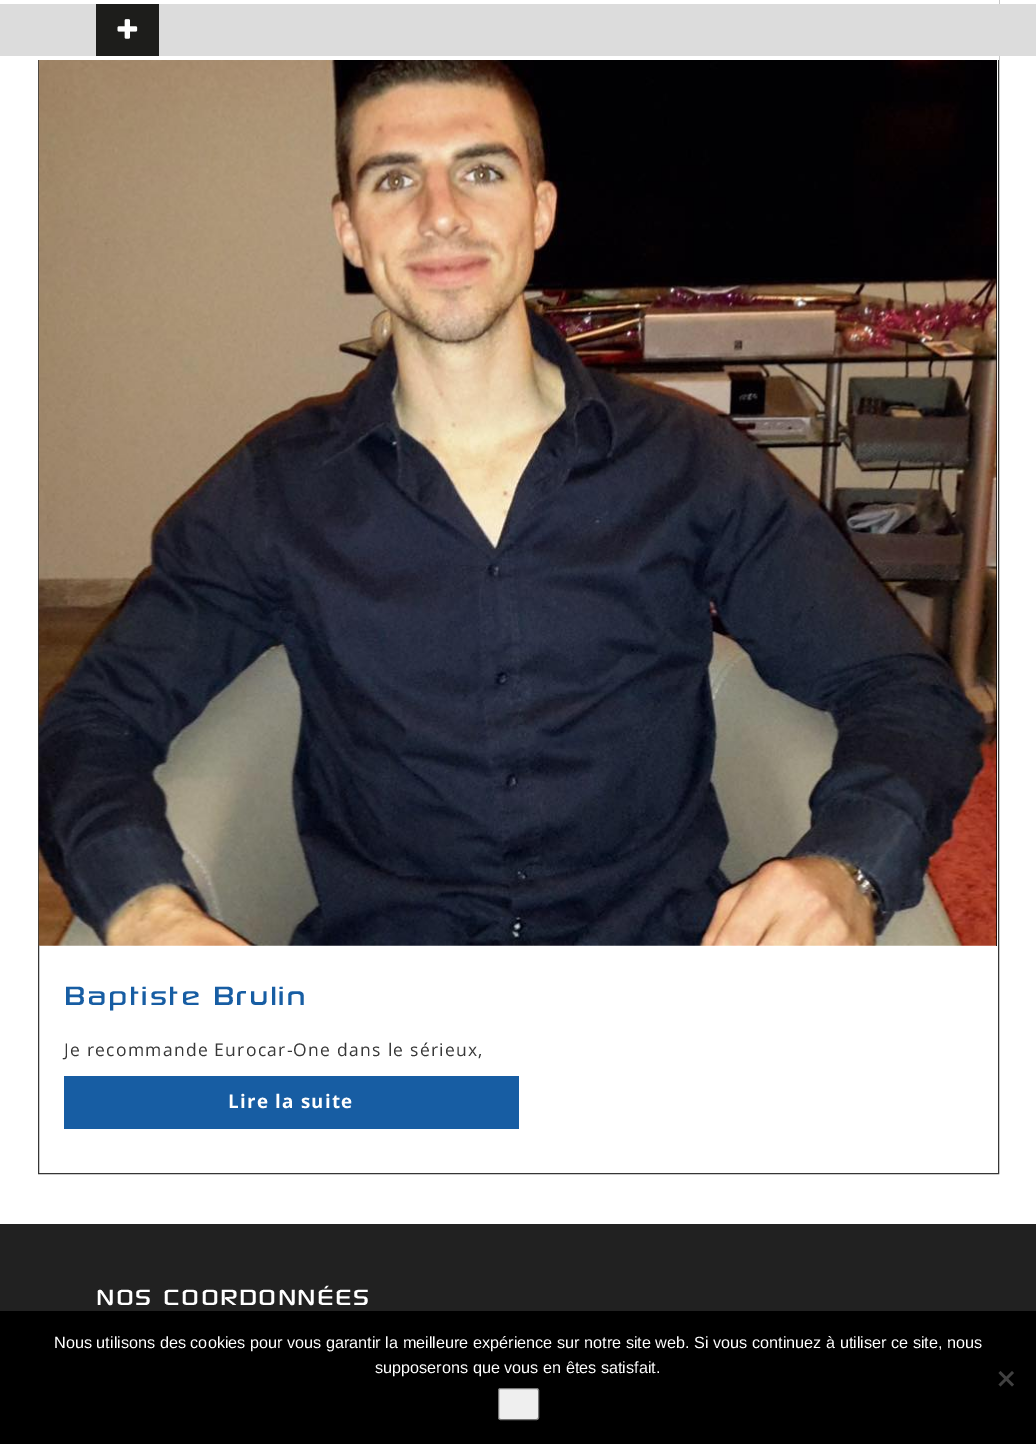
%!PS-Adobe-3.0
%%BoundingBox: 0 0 1036 1444
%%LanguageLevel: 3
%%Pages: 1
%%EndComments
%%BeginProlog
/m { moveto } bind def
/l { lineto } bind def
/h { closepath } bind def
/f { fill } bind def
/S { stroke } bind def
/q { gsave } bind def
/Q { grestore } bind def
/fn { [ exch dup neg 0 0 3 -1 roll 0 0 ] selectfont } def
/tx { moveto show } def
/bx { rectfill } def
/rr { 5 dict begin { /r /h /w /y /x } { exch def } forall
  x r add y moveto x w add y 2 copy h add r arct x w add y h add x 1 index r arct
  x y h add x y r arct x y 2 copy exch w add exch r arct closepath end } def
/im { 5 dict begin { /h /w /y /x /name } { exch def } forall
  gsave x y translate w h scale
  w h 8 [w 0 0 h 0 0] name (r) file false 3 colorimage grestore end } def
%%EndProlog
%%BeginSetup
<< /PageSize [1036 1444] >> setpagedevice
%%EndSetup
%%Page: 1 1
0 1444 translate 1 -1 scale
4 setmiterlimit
1 setgray
0 0 1036 1444 bx
0.212 setgray
38.5 -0.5 960 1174 rectstroke
0.863 setgray
0 4 1036 52 bx
1 setgray
38 0 961 4 bx
38 56 961 4 bx
0.114 0.114 0.106 setrgbcolor
96 4 63 52 bx
(image0.raw) 117 19 21 20 im
0 setgray
996 60 1 886 bx
(image1.raw) 38 60 959 886 im
/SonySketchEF-Regular 37.5 fn
0.09 0.365 0.639 setrgbcolor
64 1005 m 1.25 0 (Baptiste Brulin) ashow
/OpenSans-Regular 17.5 fn
0.22 setgray
64 1056 m 1.25 0 (Je recommande Eurocar-One dans le sérieux,) ashow
0.09 0.365 0.639 setrgbcolor
64 1076 455 53 bx
/OpenSans-Bold 18.75 fn
1 setgray
228 1108 m 1.25 0 (Lire la suite) ashow
0.129 setgray
0 1224 1036 87 bx
/SonySketchEF-Regular 31.25 fn
1 setgray
96 1305 m 1.25 0 (NOS COORDONNÉES) ashow
0 setgray
0 1311 1036 133 bx
/LiberationSans-Regular 16.25 fn
1 setgray
(Nous utilisons des cookies pour vous garantir la meilleure expérience sur notre site web. Si vous continuez à utiliser ce site, nous) 54 1348 tx
(supposerons que vous en êtes satisfait.) 375 1373 tx
0.251 setgray
1012 1371 m 1014 1373 l 1000.5 1386.5 l 998.5 1384.5 l h f
998.5 1373 m 1000.5 1371 l 1014 1384.5 l 1012 1386.5 l h f
0.937 setgray
498.5 1388.5 40 31 2 rr q f Q
0.463 setgray
S
showpage
%%EOF
